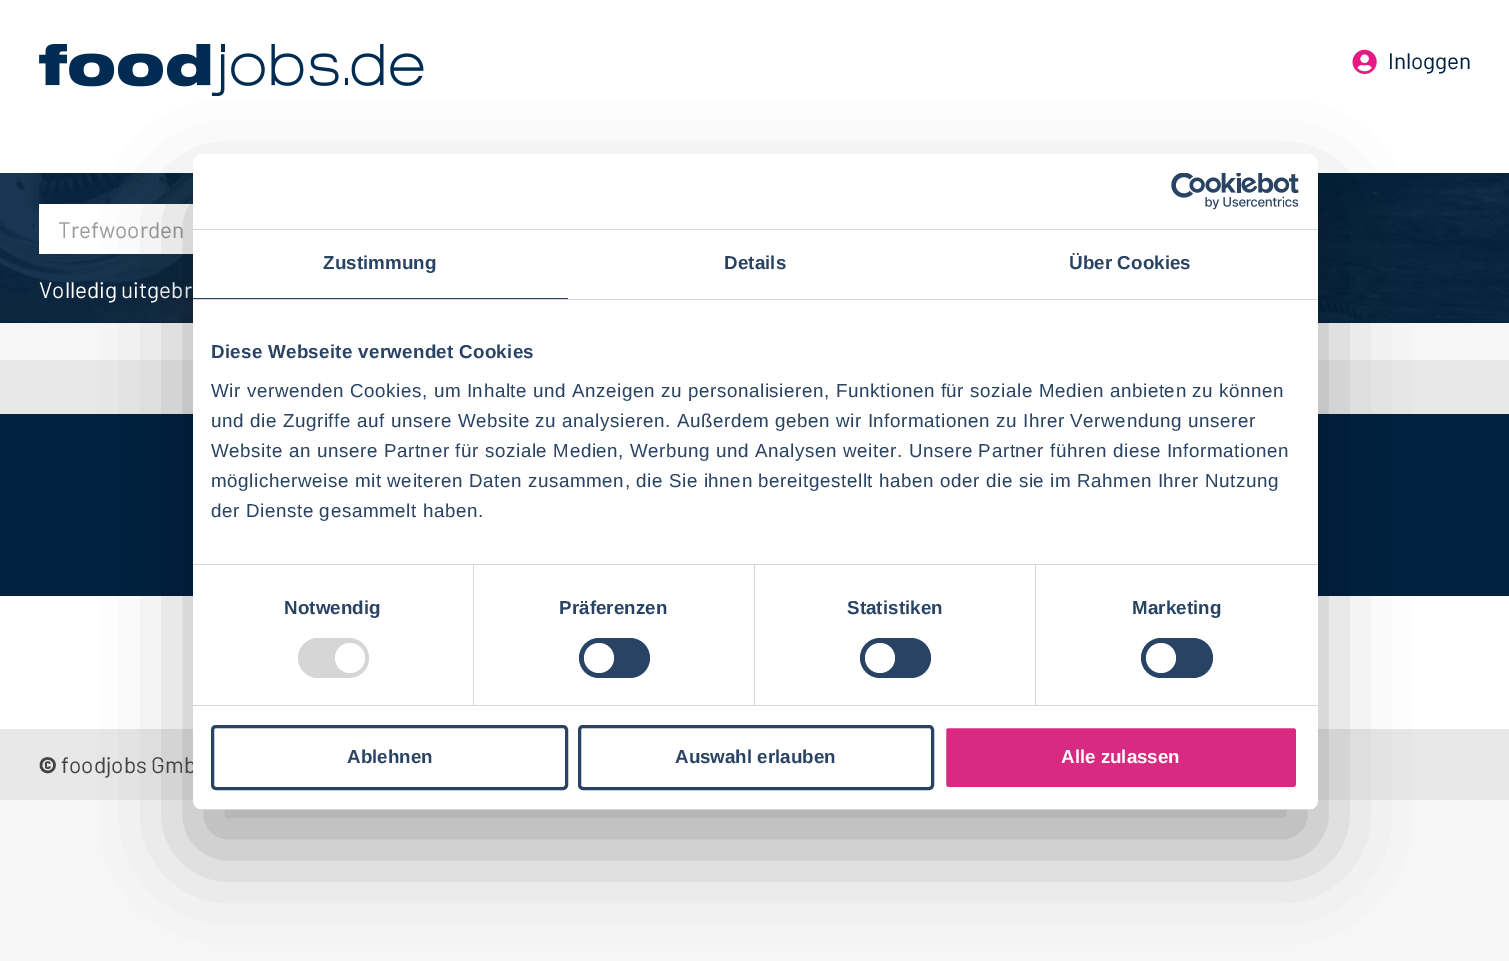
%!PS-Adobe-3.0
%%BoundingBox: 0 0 1509 961
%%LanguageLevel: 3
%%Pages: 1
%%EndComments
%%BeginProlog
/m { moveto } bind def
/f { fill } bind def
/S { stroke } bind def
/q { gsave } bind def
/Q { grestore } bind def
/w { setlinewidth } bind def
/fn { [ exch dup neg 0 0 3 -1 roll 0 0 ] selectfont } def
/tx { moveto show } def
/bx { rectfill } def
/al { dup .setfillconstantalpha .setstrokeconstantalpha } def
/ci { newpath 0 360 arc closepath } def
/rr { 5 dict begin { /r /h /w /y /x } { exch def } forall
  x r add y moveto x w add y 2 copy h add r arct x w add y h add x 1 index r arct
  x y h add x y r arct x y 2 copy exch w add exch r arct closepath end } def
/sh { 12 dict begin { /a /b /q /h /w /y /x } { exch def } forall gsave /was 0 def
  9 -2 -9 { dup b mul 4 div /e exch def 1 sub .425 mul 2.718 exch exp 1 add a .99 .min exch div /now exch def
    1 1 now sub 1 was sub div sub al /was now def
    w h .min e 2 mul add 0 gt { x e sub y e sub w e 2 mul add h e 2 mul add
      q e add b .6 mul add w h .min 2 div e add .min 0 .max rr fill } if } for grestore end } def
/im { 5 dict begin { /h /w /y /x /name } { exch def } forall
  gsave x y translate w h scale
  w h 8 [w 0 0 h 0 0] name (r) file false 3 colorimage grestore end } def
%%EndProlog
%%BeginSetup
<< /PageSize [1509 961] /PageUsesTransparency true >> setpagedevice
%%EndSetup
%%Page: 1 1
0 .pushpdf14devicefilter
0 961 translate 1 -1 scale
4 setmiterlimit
0.965 setgray
0 0 1509 961 bx
1 setgray
0 0 1509 173 bx
(image0.raw) 39 44 385 52 im
(image1.raw) 1352 49 25 25 im
/Barlow-Regular 22.5 fn
0 0.129 0.247 setrgbcolor
(Inloggen) 1388 69 tx
0 173 1509 150 bx
(image2.raw) 0 173 1509 150 im
1 setgray
39 204 154 50 bx
0.608 setgray
(Trefwoorden) 58 238 tx
1 setgray
(Volledig uitgebr) 39 298 tx
0.91 setgray
0 360 1509 54 bx
0 0.129 0.247 setrgbcolor
0 414 1509 182 bx
1 setgray
0 596 1509 133 bx
0.91 setgray
0 729 1509 71 bx
0 setgray
193 194 1125 656 10 42.5 0.3 sh
0.267 setgray
(foodjobs Gmb) 61 773 tx
1 setgray
193 154 1125 656 10 rr f
0.839 setgray
193 229 1125 1 bx
(image3.raw) 1171 173 128 37 im
193 299 1125 1 bx
0.161 0.263 0.392 setrgbcolor
193 298 375 1 bx
/LiberationSans-Bold 18.75 fn
323 269 m 0.1 0 (Zustimmung) ashow
724 269 m 0.1 0 (Details) ashow
1069 269 m 0.1 0 (Über Cookies) ashow
0.839 setgray
193 564 1125 1 bx
0.161 0.263 0.392 setrgbcolor
211 358 m 0.3 0 (Diese Webseite verwendet Cookies) ashow
/LiberationSans-Regular 18.75 fn
211 397 m 0.62 0 (Wir verwenden Cookies, um Inhalte und Anzeigen zu personalisieren, Funktionen für soziale Medien anbieten zu können) ashow
211 427 m 0.62 0 (und die Zugriffe auf unsere Website zu analysieren. Außerdem geben wir Informationen zu Ihrer Verwendung unserer) ashow
211 457 m 0.62 0 (Website an unsere Partner für soziale Medien, Werbung und Analysen weiter. Unsere Partner führen diese Informationen) ashow
211 487 m 0.62 0 (möglicherweise mit weiteren Daten zusammen, die Sie ihnen bereitgestellt haben oder die sie im Rahmen Ihrer Nutzung) ashow
211 517 m 0.62 0 (der Dienste gesammelt haben.) ashow
0.839 setgray
193 705 1125 1 bx
473 565 1 140 bx
/LiberationSans-Bold 18.75 fn
0.161 0.263 0.392 setrgbcolor
284 614 m 0.1 0 (Notwendig) ashow
0.839 setgray
298 638 71 40 20 rr f
1 setgray
350 658 15 ci f
0.839 setgray
754 565 1 140 bx
0.161 0.263 0.392 setrgbcolor
559 614 m 0.1 0 (Präferenzen) ashow
579 638 71 40 20 rr f
1 setgray
599 658 15 ci f
0.839 setgray
1035 565 1 140 bx
0.161 0.263 0.392 setrgbcolor
847 614 m 0.1 0 (Statistiken) ashow
860 638 71 40 20 rr f
1 setgray
880 658 15 ci f
0.161 0.263 0.392 setrgbcolor
1132 614 m 0.1 0 (Marketing) ashow
1141 638 72 40 20 rr f
1 setgray
1161 658 15 ci f
q
193 154 1125 656 10 rr clip newpath
0.839 setgray
193 809 1125 1 bx
Q
0.161 0.263 0.392 setrgbcolor
3 w
212.5 726.5 354 62 3.5 rr S
(Ablehnen) 347 763 tx
579.5 726.5 353 62 3.5 rr S
(Auswahl erlauben) 675 763 tx
0.847 0.165 0.502 setrgbcolor
944.5 726.5 353 62 3.5 rr q f Q
1 setgray
S
(Alle zulassen) 1061 763 tx
/Barlow-Black 22.5 fn
0.267 setgray
(©) 39 773 tx
.poppdf14devicefilter showpage
%%EOF
